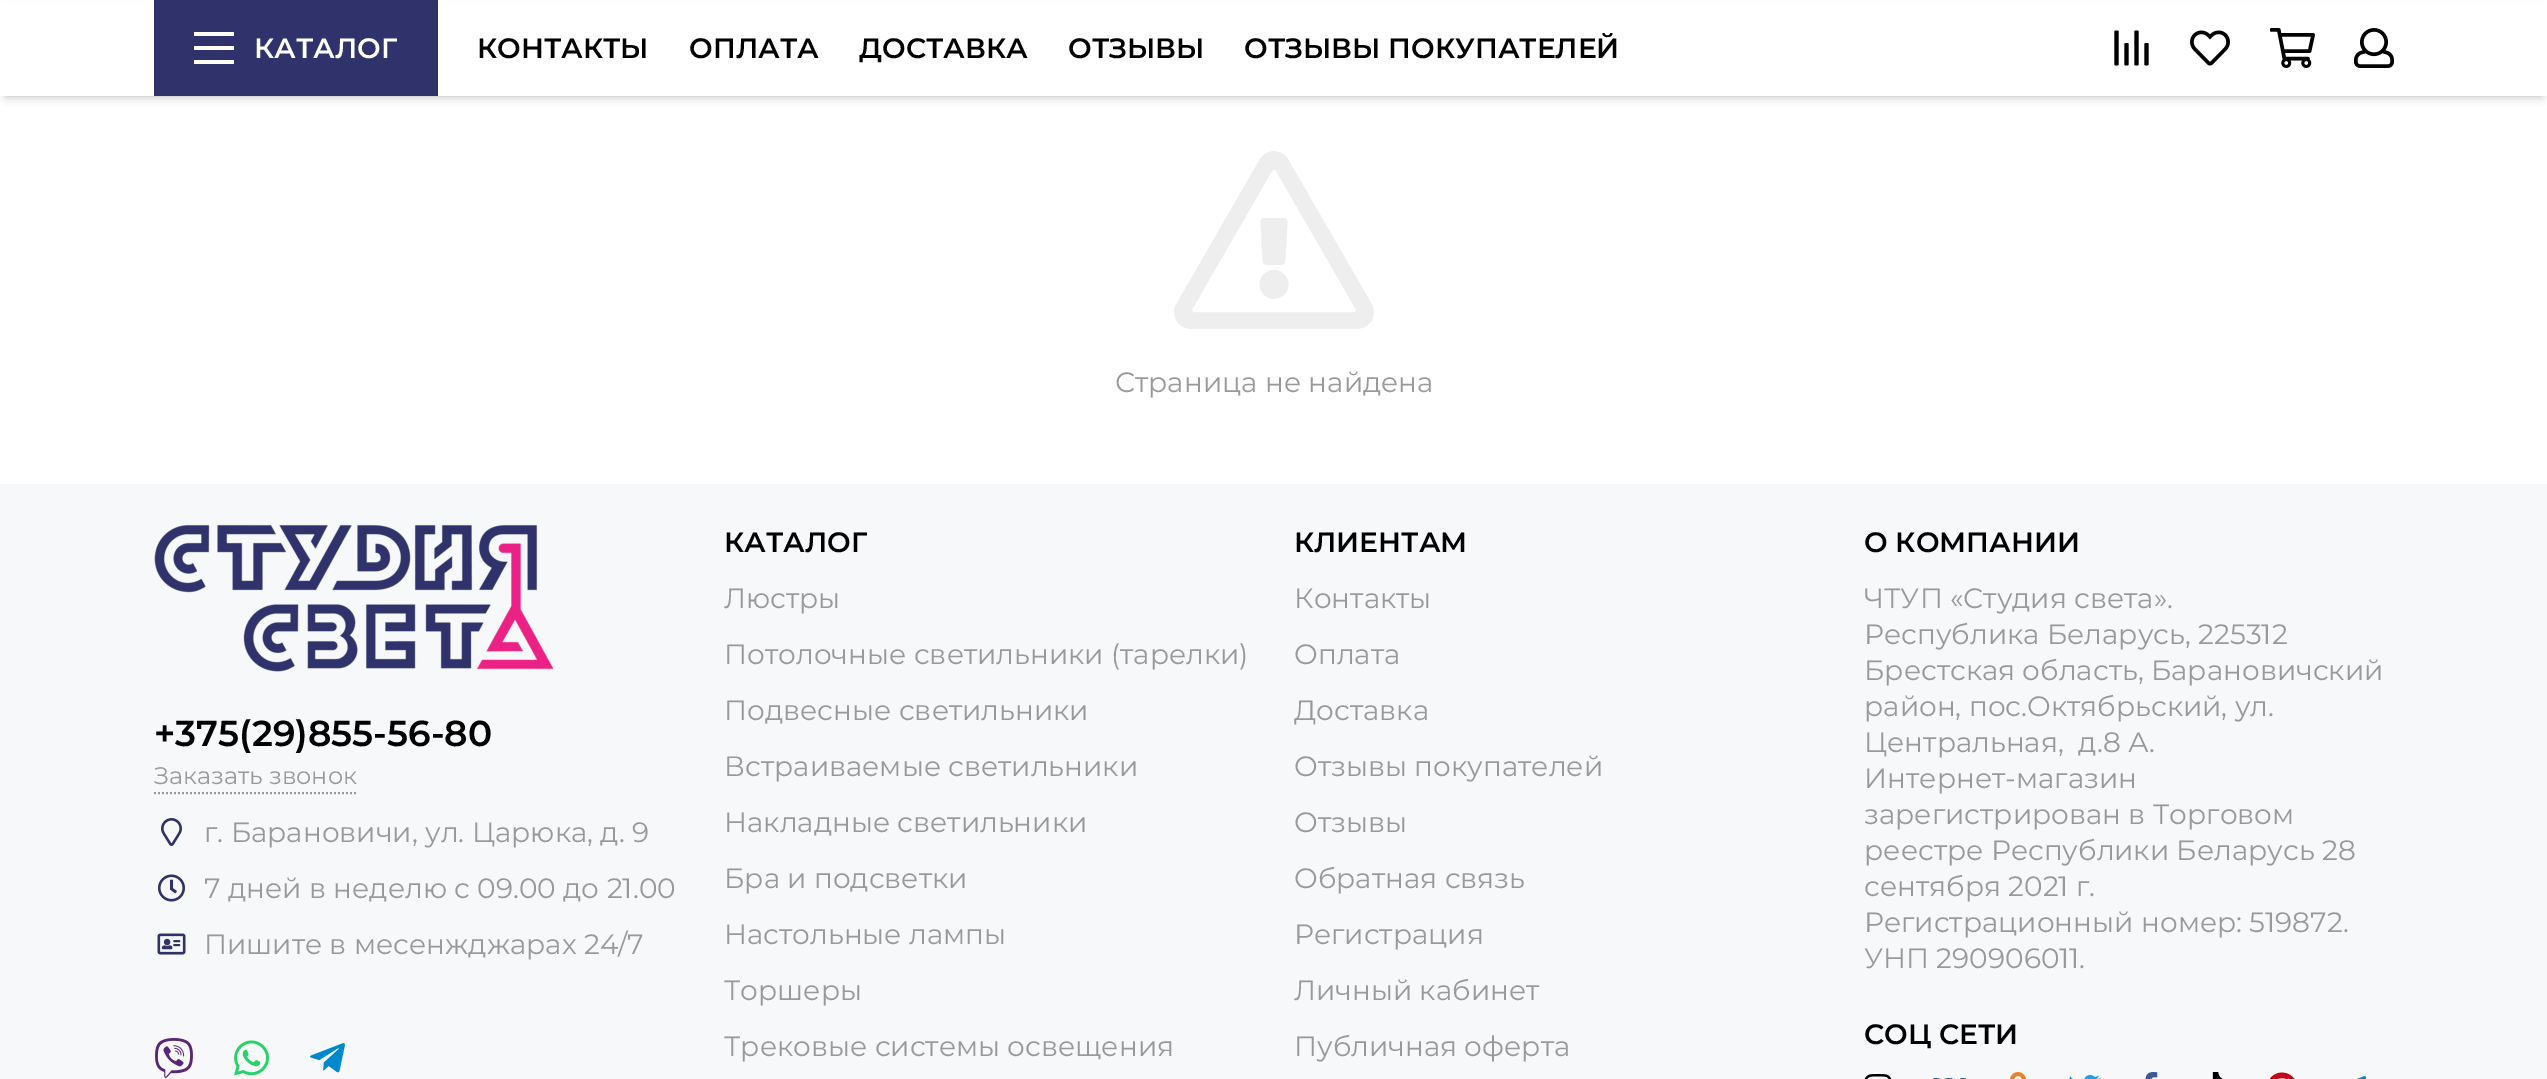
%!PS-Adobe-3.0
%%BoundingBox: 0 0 2547 1079
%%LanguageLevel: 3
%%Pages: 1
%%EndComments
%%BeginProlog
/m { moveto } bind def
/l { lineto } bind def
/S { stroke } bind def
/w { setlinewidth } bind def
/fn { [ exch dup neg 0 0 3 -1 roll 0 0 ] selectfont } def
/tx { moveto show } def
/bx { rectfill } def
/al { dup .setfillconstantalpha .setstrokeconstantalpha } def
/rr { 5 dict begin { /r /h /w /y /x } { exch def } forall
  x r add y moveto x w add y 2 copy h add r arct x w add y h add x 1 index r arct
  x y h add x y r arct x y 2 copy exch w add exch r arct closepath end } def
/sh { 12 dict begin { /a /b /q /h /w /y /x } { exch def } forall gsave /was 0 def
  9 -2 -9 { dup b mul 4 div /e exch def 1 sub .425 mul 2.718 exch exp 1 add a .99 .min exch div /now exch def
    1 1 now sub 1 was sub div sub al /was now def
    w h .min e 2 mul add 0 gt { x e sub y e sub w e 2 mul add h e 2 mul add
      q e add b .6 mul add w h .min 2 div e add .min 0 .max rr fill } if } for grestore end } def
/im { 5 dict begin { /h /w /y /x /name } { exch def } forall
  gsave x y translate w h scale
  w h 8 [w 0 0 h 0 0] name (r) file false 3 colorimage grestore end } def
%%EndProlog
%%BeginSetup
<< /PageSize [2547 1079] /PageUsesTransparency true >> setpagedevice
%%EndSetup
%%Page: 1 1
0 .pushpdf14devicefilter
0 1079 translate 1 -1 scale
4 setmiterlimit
1 setgray
0 0 2547 1079 bx
0 setgray
6 12 2536 84 0 5 0.3 sh
1 setgray
0 3 2547 93 bx
0.188 0.196 0.42 setrgbcolor
154 0 284 96 bx
1 setgray
194 32 40 4 bx
194 46 40 4 bx
194 60 40 4 bx
/Montserrat-SemiBold 28 fn
(КАТАЛОГ) 254 58 tx
0 setgray
(КОНТАКТЫ) 477 58 tx
(ОПЛАТА) 689 58 tx
(ДОСТАВКА) 859 58 tx
(ОТЗЫВЫ) 1068 58 tx
(ОТЗЫВЫ ПОКУПАТЕЛЕЙ) 1244 58 tx
(image0.raw) 2114 30 35 36 im
(image1.raw) 2190 30 40 36 im
(image2.raw) 2270 28 45 40 im
(image3.raw) 2354 28 40 40 im
(image4.raw) 1174 151 200 178 im
/Montserrat-Regular 28 fn
0.6 setgray
(Страница не найдена) 1115 392 tx
0.969 0.973 0.98 setrgbcolor
0 484 2547 595 bx
(image5.raw) 154 524 400 148 im
/Montserrat-SemiBold 36 fn
0 setgray
(+375\(29\)855-56-80) 154 746 tx
0.6 setgray
2 w
[2 2] 0 setdash
154 793 m 356 793 l S
/Montserrat-Regular 24 fn
(Заказать звонок) 154 784 tx
(image6.raw) 161 818 21 28 im
/Montserrat-Regular 28 fn
(г. Барановичи, ул. Царюка, д. 9) 204 842 tx
(image7.raw) 158 874 27 28 im
(7 дней в неделю с 09.00 до 21.00) 204 898 tx
(image8.raw) 157 933 29 22 im
(Пишите в месенжджарах 24/7) 204 954 tx
(image9.raw) 155 1038 38 40 im
(image10.raw) 234 1040 35 36 im
(image11.raw) 310 1043 35 30 im
/Montserrat-SemiBold 28 fn
0 setgray
(КАТАЛОГ) 724 552 tx
/Montserrat-Regular 28 fn
0.6 setgray
(Люстры) 724 608 tx
(Потолочные светильники \(тарелки\)) 724 664 tx
(Подвесные светильники) 724 720 tx
(Встраиваемые светильники) 724 776 tx
(Накладные светильники) 724 832 tx
(Бра и подсветки) 724 888 tx
(Настольные лампы) 724 944 tx
(Торшеры) 724 1000 tx
(Трековые системы освещения) 724 1056 tx
/Montserrat-SemiBold 28 fn
0 setgray
(КЛИЕНТАМ) 1294 552 tx
/Montserrat-Regular 28 fn
0.6 setgray
(Контакты) 1294 608 tx
(Оплата) 1294 664 tx
(Доставка) 1294 720 tx
(Отзывы покупателей) 1294 776 tx
(Отзывы) 1294 832 tx
(Обратная связь) 1294 888 tx
(Регистрация) 1294 944 tx
(Личный кабинет) 1294 1000 tx
(Публичная оферта) 1294 1056 tx
/Montserrat-SemiBold 28 fn
0 setgray
(О КОМПАНИИ) 1864 552 tx
/Montserrat-Regular 28 fn
0.6 setgray
(ЧТУП «Студия света».) 1864 608 tx
(Республика Беларусь, 225312) 1864 644 tx
(Брестская область, Барановичский) 1864 680 tx
(район, пос.Октябрьский, ул.) 1864 716 tx
(Центральная,  д.8 А.) 1864 752 tx
(Интернет-магазин) 1864 788 tx
(зарегистрирован в Торговом) 1864 824 tx
(реестре Республики Беларусь 28) 1864 860 tx
(сентября 2021 г.) 1864 896 tx
(Регистрационный номер: 519872.) 1864 932 tx
(УНП 290906011.) 1864 968 tx
/Montserrat-SemiBold 28 fn
0 setgray
(СОЦ СЕТИ) 1864 1044 tx
(image12.raw) 1864 1074 28 5 im
(image13.raw) 1933 1078 34 1 im
(image14.raw) 2010 1072 16 7 im
(image15.raw) 2069 1075 31 4 im
(image16.raw) 2145 1072 13 7 im
(image17.raw) 2212 1072 11 7 im
(image18.raw) 2269 1072 26 7 im
(image19.raw) 2357 1076 9 3 im
.poppdf14devicefilter showpage
%%EOF
